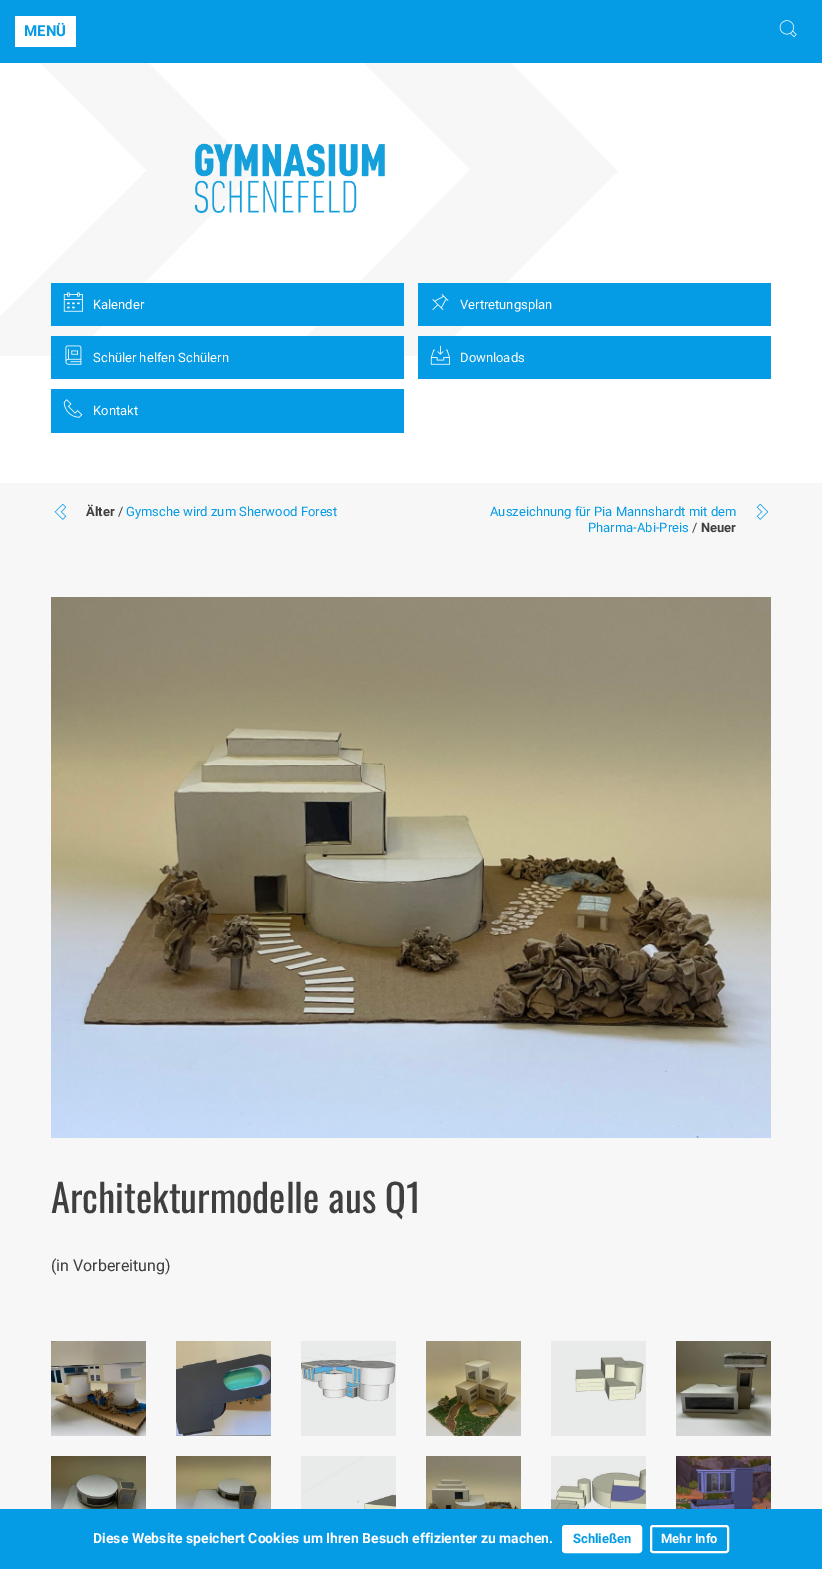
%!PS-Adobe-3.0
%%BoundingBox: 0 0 822 1569
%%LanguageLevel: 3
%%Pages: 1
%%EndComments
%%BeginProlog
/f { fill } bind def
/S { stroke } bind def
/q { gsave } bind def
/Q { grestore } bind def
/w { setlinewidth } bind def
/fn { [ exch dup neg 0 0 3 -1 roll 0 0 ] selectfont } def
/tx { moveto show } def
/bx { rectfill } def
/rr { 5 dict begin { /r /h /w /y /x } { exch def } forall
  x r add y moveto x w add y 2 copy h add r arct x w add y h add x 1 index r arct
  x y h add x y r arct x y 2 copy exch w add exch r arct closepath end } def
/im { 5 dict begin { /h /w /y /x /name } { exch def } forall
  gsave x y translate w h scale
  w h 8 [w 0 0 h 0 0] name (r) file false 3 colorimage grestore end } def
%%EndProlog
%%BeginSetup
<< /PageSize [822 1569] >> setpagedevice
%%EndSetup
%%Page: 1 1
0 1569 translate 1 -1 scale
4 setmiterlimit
0.024 0.608 0.898 setrgbcolor
0 0 822 1569 bx
1 setgray
15 16 61 31 bx
/Roboto-Bold 15 fn
0.024 0.608 0.898 setrgbcolor
(MENÜ) 24 36 tx
0.969 setgray
0 483 822 1026 bx
(image0.raw) 779 20 18 18 im
1 setgray
0 63 822 420 bx
(image1.raw) 0 63 618 293 im
(image2.raw) 195 143 190 70 im
0.024 0.608 0.898 setrgbcolor
51 283 353 43 bx
(image3.raw) 63 292 20 20 im
/Roboto-Regular 13 fn
1 setgray
(Kalender) 93 309 tx
0.024 0.608 0.898 setrgbcolor
418 283 353 43 bx
(image4.raw) 432 294 17 17 im
1 setgray
(Vertretungsplan) 460 309 tx
0.024 0.608 0.898 setrgbcolor
51 336 353 43 bx
(image5.raw) 65 345 17 20 im
1 setgray
(Schüler helfen Schülern) 93 362 tx
0.024 0.608 0.898 setrgbcolor
418 336 353 43 bx
(image6.raw) 430 345 20 20 im
1 setgray
(Downloads) 460 362 tx
0.024 0.608 0.898 setrgbcolor
51 389 353 44 bx
(image7.raw) 63 399 20 19 im
1 setgray
(Kontakt) 93 415 tx
(image8.raw) 54 503 13 17 im
/Roboto-Bold 13 fn
0.247 setgray
(Älter) 86 516 tx
/Roboto-Regular 13 fn
(/) 118 516 tx
0.024 0.608 0.898 setrgbcolor
(Gymsche wird zum Sherwood Forest) 126 516 tx
(Auszeichnung für Pia Mannshardt mit dem) 490 516 tx
(image9.raw) 756 503 13 17 im
(Pharma-Abi-Preis) 588 532 tx
0.247 setgray
(/) 692 532 tx
/Roboto-Bold 13 fn
(Neuer) 701 532 tx
(image10.raw) 51 597 720 541 im
/Oswald-Regular 38.5 fn
(Architekturmodelle aus Q1) 51 1213 tx
/Roboto-Regular 16 fn
(\(in Vorbereitung\)) 51 1271 tx
(image11.raw) 51 1341 95 95 im
(image12.raw) 176 1341 95 95 im
(image13.raw) 301 1341 95 95 im
(image14.raw) 426 1341 95 95 im
(image15.raw) 551 1341 95 95 im
(image16.raw) 676 1341 95 95 im
(image17.raw) 51 1456 95 53 im
(image18.raw) 176 1456 95 53 im
(image19.raw) 301 1456 95 53 im
(image20.raw) 426 1456 95 53 im
(image21.raw) 551 1456 95 53 im
(image22.raw) 676 1456 95 53 im
/Roboto-Bold 14 fn
1 setgray
(Diese Website speichert Cookies um Ihren Besuch effizienter zu machen.) 93 1543 tx
563 1526 78 26 2 rr q f Q
2 w
S
/Roboto-Bold 13 fn
0.024 0.608 0.898 setrgbcolor
(Schließen) 573 1543 tx
1 setgray
651 1526 77 26 2 rr S
(Mehr Info) 661 1543 tx
showpage
%%EOF
